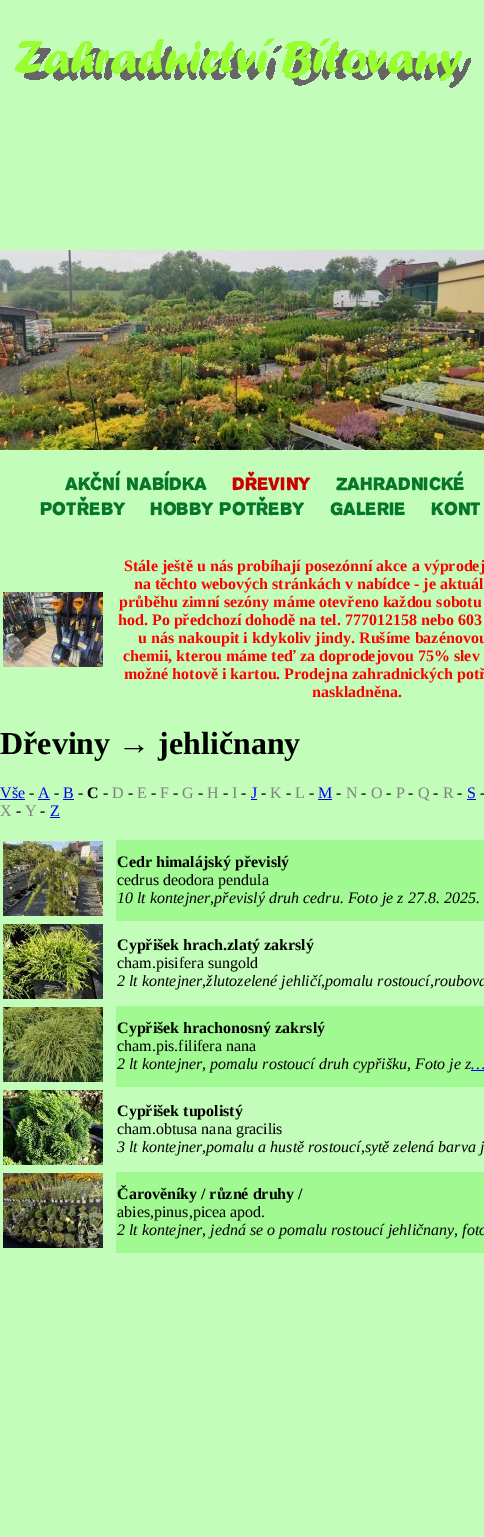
%!PS-Adobe-3.0
%%BoundingBox: 0 0 484 1537
%%LanguageLevel: 3
%%Pages: 1
%%EndComments
%%BeginProlog
/fn { [ exch dup neg 0 0 3 -1 roll 0 0 ] selectfont } def
/tx { moveto show } def
/bx { rectfill } def
/im { 5 dict begin { /h /w /y /x /name } { exch def } forall
  gsave x y translate w h scale
  w h 8 [w 0 0 h 0 0] name (r) file false 3 colorimage grestore end } def
%%EndProlog
%%BeginSetup
<< /PageSize [484 1537] >> setpagedevice
%%EndSetup
%%Page: 1 1
0 1537 translate 1 -1 scale
4 setmiterlimit
0.761 0.992 0.725 setrgbcolor
0 0 484 1537 bx
(image0.raw) 15 38 456 50 im
(image1.raw) 0 250 484 200 im
/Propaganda-Regular 16 fn
0.024 0.463 0.169 setrgbcolor
(AKČNÍ NABÍDKA) 65 490 tx
0.8 0 0 setrgbcolor
(DŘEVINY) 232 490 tx
0.024 0.463 0.169 setrgbcolor
(ZAHRADNICKÉ) 336 490 tx
(POTŘEBY) 40 515 tx
(HOBBY POTŘEBY) 150 515 tx
(GALERIE) 330 515 tx
(KONT) 431 515 tx
(image2.raw) 3 592 100 75 im
/LiberationSerif-Bold 16 fn
1 0 0 setrgbcolor
(Stále ještě u nás probíhají posezónní akce a výprodej) 124 571 tx
(na těchto webových stránkách v nabídce - je aktuál) 134 589 tx
(průběhu zimní sezóny máme otevřeno každou sobotu) 119 607 tx
(hod. Po předchozí dohodě na tel. 777012158 nebo 603) 118 625 tx
(u nás nakoupit i kdykoliv jindy. Rušíme bazénovou) 138 643 tx
(chemii, kterou máme teď za doprodejovou 75% slev) 123 661 tx
(možné hotově i kartou. Prodejna zahradnických potř) 124 679 tx
(naskladněna.) 312 697 tx
/LiberationSerif-Bold 32 fn
0 setgray
(Dřeviny → jehličnany) 0 754 tx
/LiberationSerif-Regular 16 fn
0 0 0.933 setrgbcolor
(Vše) 0 798 tx
0 799 25 1 bx
0 setgray
(-) 29 798 tx
0 0 0.933 setrgbcolor
(A) 38 798 tx
38 799 12 1 bx
0 setgray
(-) 54 798 tx
0 0 0.933 setrgbcolor
(B) 63 798 tx
63 799 11 1 bx
0 setgray
(-) 78 798 tx
/LiberationSerif-Bold 16 fn
(C) 87 798 tx
/LiberationSerif-Regular 16 fn
(-) 103 798 tx
0.502 setgray
(D) 112 798 tx
0 setgray
(-) 128 798 tx
0.502 setgray
(E) 137 798 tx
0 setgray
(-) 151 798 tx
0.502 setgray
(F) 160 798 tx
0 setgray
(-) 173 798 tx
0.502 setgray
(G) 182 798 tx
0 setgray
(-) 198 798 tx
0.502 setgray
(H) 207 798 tx
0 setgray
(-) 223 798 tx
0.502 setgray
(I) 232 798 tx
0 setgray
(-) 241 798 tx
0 0 0.933 setrgbcolor
(J) 251 798 tx
251 799 6 1 bx
0 setgray
(-) 261 798 tx
0.502 setgray
(K) 270 798 tx
0 setgray
(-) 286 798 tx
0.502 setgray
(L) 295 798 tx
0 setgray
(-) 309 798 tx
0 0 0.933 setrgbcolor
(M) 318 798 tx
318 799 14 1 bx
0 setgray
(-) 336 798 tx
0.502 setgray
(N) 346 798 tx
0 setgray
(-) 361 798 tx
0.502 setgray
(O) 371 798 tx
0 setgray
(-) 386 798 tx
0.502 setgray
(P) 396 798 tx
0 setgray
(-) 408 798 tx
0.502 setgray
(Q) 418 798 tx
0 setgray
(-) 433 798 tx
0.502 setgray
(R) 443 798 tx
0 setgray
(-) 457 798 tx
0 0 0.933 setrgbcolor
(S) 467 798 tx
467 799 9 1 bx
0 setgray
(-) 480 798 tx
0.502 setgray
(X) 0 816 tx
0 setgray
(-) 16 816 tx
0.502 setgray
(Y) 25 816 tx
0 setgray
(-) 40 816 tx
0 0 0.933 setrgbcolor
(Z) 50 816 tx
50 817 10 1 bx
(image3.raw) 3 841 100 75 im
0.627 0.976 0.569 setrgbcolor
116 840 368 81 bx
/LiberationSerif-Bold 16 fn
0 setgray
(Cedr himalájský převislý) 117 867 tx
/LiberationSerif-Regular 16 fn
(cedrus deodora pendula) 117 885 tx
/LiberationSerif-Italic 16 fn
(10 lt kontejner,převislý druh cedru. Foto je z 27.8. 2025.) 117 903 tx
(image4.raw) 3 924 100 75 im
/LiberationSerif-Bold 16 fn
(Cypřišek hrach.zlatý zakrslý) 117 950 tx
/LiberationSerif-Regular 16 fn
(cham.pisifera sungold) 117 968 tx
/LiberationSerif-Italic 16 fn
(2 lt kontejner,žlutozelené jehličí,pomalu rostoucí,roubova) 117 986 tx
(image5.raw) 3 1007 100 75 im
0.627 0.976 0.569 setrgbcolor
116 1006 368 81 bx
/LiberationSerif-Bold 16 fn
0 setgray
(Cypřišek hrachonosný zakrslý) 117 1033 tx
/LiberationSerif-Regular 16 fn
(cham.pis.filifera nana) 117 1051 tx
/LiberationSerif-Italic 16 fn
(2 lt kontejner, pomalu rostoucí druh cypřišku, Foto je z) 117 1069 tx
0 0 0.933 setrgbcolor
(…) 471 1069 tx
471 1070 13 1 bx
(image6.raw) 3 1090 100 75 im
/LiberationSerif-Bold 16 fn
0 setgray
(Cypřišek tupolistý) 117 1116 tx
/LiberationSerif-Regular 16 fn
(cham.obtusa nana gracilis) 117 1134 tx
/LiberationSerif-Italic 16 fn
(3 lt kontejner,pomalu a hustě rostoucí,sytě zelená barva j) 117 1152 tx
(image7.raw) 3 1173 100 75 im
0.627 0.976 0.569 setrgbcolor
116 1172 368 81 bx
/LiberationSerif-Bold 16 fn
0 setgray
(Čarověníky / různé druhy /) 117 1199 tx
/LiberationSerif-Regular 16 fn
(abies,pinus,picea apod.) 117 1217 tx
/LiberationSerif-Italic 16 fn
(2 lt kontejner, jedná se o pomalu rostoucí jehličnany, foto) 117 1235 tx
showpage
%%EOF
